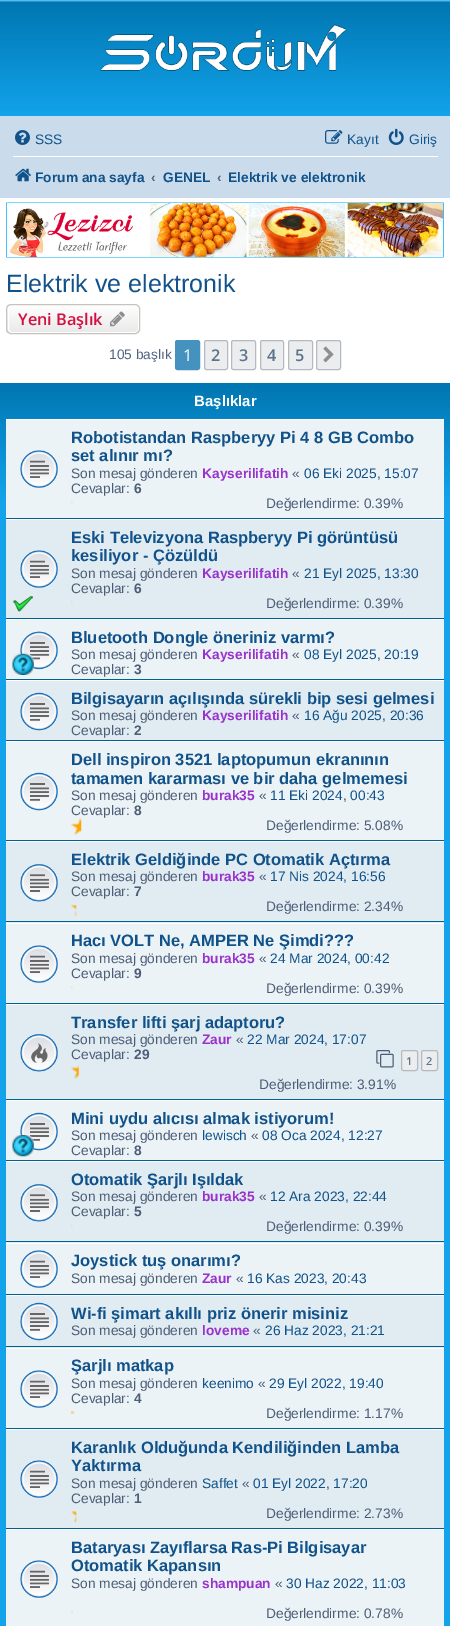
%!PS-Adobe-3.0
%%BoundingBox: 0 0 450 1626
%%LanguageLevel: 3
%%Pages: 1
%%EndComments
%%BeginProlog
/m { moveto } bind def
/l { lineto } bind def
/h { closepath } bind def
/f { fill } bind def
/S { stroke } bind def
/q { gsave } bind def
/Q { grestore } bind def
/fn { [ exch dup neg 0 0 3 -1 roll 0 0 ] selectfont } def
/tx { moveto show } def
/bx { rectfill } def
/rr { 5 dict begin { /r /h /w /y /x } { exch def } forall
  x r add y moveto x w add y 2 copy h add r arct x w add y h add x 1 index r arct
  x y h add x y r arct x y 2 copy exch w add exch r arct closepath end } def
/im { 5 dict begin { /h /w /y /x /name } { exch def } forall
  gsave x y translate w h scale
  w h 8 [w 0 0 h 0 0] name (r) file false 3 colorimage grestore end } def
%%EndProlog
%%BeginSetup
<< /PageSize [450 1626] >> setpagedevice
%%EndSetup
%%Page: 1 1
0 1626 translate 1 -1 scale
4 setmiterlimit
1 setgray
0 0 450 1626 bx
q 0 0 m 450 0 l 450 116 l 0 116 l h clip newpath
<< /ShadingType 2 /ColorSpace /DeviceRGB /Coords [225 0 225 118] /Extend [true true] /Function << /FunctionType 3 /Domain [0 1] /Functions [<< /FunctionType 2 /Domain [0 1] /C0 [0.416 0.808 1] /C1 [0 0.463 0.694] /N 1 >> << /FunctionType 2 /Domain [0 1] /C0 [0 0.463 0.694] /C1 [0.071 0.639 0.922] /N 1 >> << /FunctionType 2 /Domain [0 1] /C0 [0.071 0.639 0.922] /C1 [0.071 0.639 0.922] /N 1 >>] /Bounds [0.02 0.98] /Encode [0 1 0 1 0 1] >> >> shfill Q
(image0.raw) 100 24 247 47 im
0.792 0.863 0.922 setrgbcolor
0 116 450 82 bx
(image1.raw) 15 130 15 15 im
/LiberationSans-Regular 13.75 fn
0.063 0.322 0.537 setrgbcolor
(SSS) 35 144 tx
(image2.raw) 325 130 18 14 im
(Kayıt) 347 144 tx
(image3.raw) 388 128 16 17 im
(Giriş) 409 144 tx
1 setgray
13 156 425 1 bx
(image4.raw) 15 168 16 14 im
/LiberationSans-Bold 13.75 fn
0.063 0.322 0.537 setrgbcolor
(Forum ana sayfa) 35 182 tx
0.325 0.392 0.51 setrgbcolor
(‹) 151 182 tx
0.063 0.322 0.537 setrgbcolor
(GENEL) 163 182 tx
0.325 0.392 0.51 setrgbcolor
(‹) 217 182 tx
0.063 0.322 0.537 setrgbcolor
(Elektrik ve elektronik) 228 182 tx
(image5.raw) 6 202 438 56 im
/LiberationSans-Regular 25 fn
(Elektrik ve elektronik) 6 292 tx
q
6 304 134 30 5 rr clip newpath
q 6 305 m 140 305 l 140 333 l 6 333 l h clip newpath
<< /ShadingType 2 /ColorSpace /DeviceRGB /Coords [73 305 73 333] /Extend [true true] /Function << /FunctionType 2 /Domain [0 1] /C0 [1 1 1] /C1 [0.914 0.914 0.914] /N 1 >> >> shfill Q
Q
1 setgray
8.5 305.5 130 27 3.5 rr S
0.78 0.765 0.749 setrgbcolor
6.5 304.5 133 29 4.5 rr S
/OpenSans-SemiBold 16.25 fn
0.827 0.067 0.255 setrgbcolor
(Yeni Başlık) 18 325 tx
(image6.raw) 110 311 15 16 im
/LiberationSans-Regular 13.75 fn
0.325 0.392 0.51 setrgbcolor
(105 başlık) 109 359 tx
0.275 0.573 0.749 setrgbcolor
175.5 340.5 24 29 2 rr q f Q
S
/OpenSans-Regular 16.25 fn
1 setgray
(1) 183 361 tx
0.925 0.929 0.933 setrgbcolor
204.5 340.5 23 29 2 rr q f Q
0.706 0.729 0.753 setrgbcolor
S
/OpenSans-SemiBold 16.25 fn
0.361 0.459 0.549 setrgbcolor
(2) 211 361 tx
0.925 0.929 0.933 setrgbcolor
231.5 340.5 24 29 2 rr q f Q
0.706 0.729 0.753 setrgbcolor
S
0.361 0.459 0.549 setrgbcolor
(3) 239 361 tx
0.925 0.929 0.933 setrgbcolor
260.5 340.5 23 29 2 rr q f Q
0.706 0.729 0.753 setrgbcolor
S
0.361 0.459 0.549 setrgbcolor
(4) 267 361 tx
0.925 0.929 0.933 setrgbcolor
288.5 340.5 24 29 2 rr q f Q
0.706 0.729 0.753 setrgbcolor
S
0.361 0.459 0.549 setrgbcolor
(5) 295 361 tx
0.925 0.929 0.933 setrgbcolor
316.5 340.5 24 29 2 rr q f Q
0.706 0.729 0.753 setrgbcolor
S
(image7.raw) 323 346 11 17 im
q 0 383 m 450 383 l 450 1626 l 0 1626 l h clip newpath
<< /ShadingType 2 /ColorSpace /DeviceRGB /Coords [225 383 225 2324] /Extend [true true] /Function << /FunctionType 3 /Domain [0 1] /Functions [<< /FunctionType 2 /Domain [0 1] /C0 [0 0.463 0.694] /C1 [0.071 0.639 0.922] /N 1 >> << /FunctionType 2 /Domain [0 1] /C0 [0.071 0.639 0.922] /C1 [0.071 0.639 0.922] /N 1 >>] /Bounds [0.06] /Encode [0 1 0 1] >> >> shfill Q
/LiberationSans-Bold 15 fn
1 setgray
(Başlıklar) 194 406 tx
0.925 0.953 0.969 setrgbcolor
6 420 438 98 bx
1 setgray
6 419 438 1 bx
0 0.376 0.561 setrgbcolor
6 518 438 1 bx
(image8.raw) 20 450 38 38 im
/LiberationSans-Bold 16.5 fn
0.063 0.322 0.537 setrgbcolor
(Robotistandan Raspberyy Pi 4 8 GB Combo) 71 443 tx
(set alınır mı?) 71 461 tx
/LiberationSans-Regular 13.75 fn
0.298 0.365 0.467 setrgbcolor
(Son mesaj gönderen) 71 478 tx
/LiberationSans-Bold 13.75 fn
0.6 0.2 0.8 setrgbcolor
(Kayserilifatih) 202 478 tx
/LiberationSans-Regular 13.75 fn
0.298 0.365 0.467 setrgbcolor
(«) 292 478 tx
0.063 0.322 0.537 setrgbcolor
(06 Eki 2025, 15:07) 304 478 tx
0.298 0.365 0.467 setrgbcolor
(Cevaplar:) 71 493 tx
/LiberationSans-Bold 13.75 fn
(6) 134 493 tx
(image9.raw) 71 501 2 3 im
/LiberationSans-Regular 13.75 fn
(Değerlendirme: 0.39%) 266 508 tx
0.882 0.922 0.949 setrgbcolor
6 520 438 98 bx
1 setgray
6 519 438 1 bx
0 0.376 0.561 setrgbcolor
6 618 438 1 bx
(image10.raw) 20 550 38 38 im
(image11.raw) 13 596 20 16 im
/LiberationSans-Bold 16.5 fn
0.063 0.322 0.537 setrgbcolor
(Eski Televizyona Raspberyy Pi görüntüsü) 71 543 tx
(kesiliyor - Çözüldü) 71 561 tx
/LiberationSans-Regular 13.75 fn
0.298 0.365 0.467 setrgbcolor
(Son mesaj gönderen) 71 578 tx
/LiberationSans-Bold 13.75 fn
0.6 0.2 0.8 setrgbcolor
(Kayserilifatih) 202 578 tx
/LiberationSans-Regular 13.75 fn
0.298 0.365 0.467 setrgbcolor
(«) 292 578 tx
0.063 0.322 0.537 setrgbcolor
(21 Eyl 2025, 13:30) 304 578 tx
0.298 0.365 0.467 setrgbcolor
(Cevaplar:) 71 593 tx
/LiberationSans-Bold 13.75 fn
(6) 134 593 tx
(image12.raw) 71 601 2 3 im
/LiberationSans-Regular 13.75 fn
(Değerlendirme: 0.39%) 266 608 tx
0.925 0.953 0.969 setrgbcolor
6 620 438 59 bx
1 setgray
6 619 438 1 bx
0 0.376 0.561 setrgbcolor
6 679 438 1 bx
(image13.raw) 20 631 38 39 im
(image14.raw) 12 653 22 22 im
/LiberationSans-Bold 16.5 fn
0.063 0.322 0.537 setrgbcolor
(Bluetooth Dongle öneriniz varmı?) 71 643 tx
/LiberationSans-Regular 13.75 fn
0.298 0.365 0.467 setrgbcolor
(Son mesaj gönderen) 71 659 tx
/LiberationSans-Bold 13.75 fn
0.6 0.2 0.8 setrgbcolor
(Kayserilifatih) 202 659 tx
/LiberationSans-Regular 13.75 fn
0.298 0.365 0.467 setrgbcolor
(«) 292 659 tx
0.063 0.322 0.537 setrgbcolor
(08 Eyl 2025, 20:19) 304 659 tx
0.298 0.365 0.467 setrgbcolor
(Cevaplar:) 71 674 tx
/LiberationSans-Bold 13.75 fn
(3) 134 674 tx
0.882 0.922 0.949 setrgbcolor
6 681 438 59 bx
1 setgray
6 680 438 1 bx
0 0.376 0.561 setrgbcolor
6 740 438 1 bx
(image15.raw) 20 692 38 39 im
/LiberationSans-Bold 16.5 fn
0.063 0.322 0.537 setrgbcolor
(Bilgisayarın açılışında sürekli bip sesi gelmesi) 71 704 tx
/LiberationSans-Regular 13.75 fn
0.298 0.365 0.467 setrgbcolor
(Son mesaj gönderen) 71 720 tx
/LiberationSans-Bold 13.75 fn
0.6 0.2 0.8 setrgbcolor
(Kayserilifatih) 202 720 tx
/LiberationSans-Regular 13.75 fn
0.298 0.365 0.467 setrgbcolor
(«) 292 720 tx
0.063 0.322 0.537 setrgbcolor
(16 Ağu 2025, 20:36) 304 720 tx
0.298 0.365 0.467 setrgbcolor
(Cevaplar:) 71 735 tx
/LiberationSans-Bold 13.75 fn
(2) 134 735 tx
0.925 0.953 0.969 setrgbcolor
6 742 438 98 bx
1 setgray
6 741 438 1 bx
0 0.376 0.561 setrgbcolor
6 840 438 1 bx
(image16.raw) 20 772 38 39 im
/LiberationSans-Bold 16.5 fn
0.063 0.322 0.537 setrgbcolor
(Dell inspiron 3521 laptopumun ekranının) 71 765 tx
(tamamen kararması ve bir daha gelmemesi) 71 784 tx
/LiberationSans-Regular 13.75 fn
0.298 0.365 0.467 setrgbcolor
(Son mesaj gönderen) 71 800 tx
/LiberationSans-Bold 13.75 fn
0.6 0.2 0.8 setrgbcolor
(burak35) 202 800 tx
/LiberationSans-Regular 13.75 fn
0.298 0.365 0.467 setrgbcolor
(«) 259 800 tx
0.063 0.322 0.537 setrgbcolor
(11 Eki 2024, 00:43) 270 800 tx
0.298 0.365 0.467 setrgbcolor
(Cevaplar:) 71 815 tx
/LiberationSans-Bold 13.75 fn
(8) 134 815 tx
(image17.raw) 71 817 11 18 im
/LiberationSans-Regular 13.75 fn
(Değerlendirme: 5.08%) 266 830 tx
0.882 0.922 0.949 setrgbcolor
6 842 438 81 bx
1 setgray
6 841 438 1 bx
0 0.376 0.561 setrgbcolor
6 921 438 1 bx
(image18.raw) 20 863 38 39 im
/LiberationSans-Bold 16.5 fn
0.063 0.322 0.537 setrgbcolor
(Elektrik Geldiğinde PC Otomatik Açtırma) 71 865 tx
/LiberationSans-Regular 13.75 fn
0.298 0.365 0.467 setrgbcolor
(Son mesaj gönderen) 71 881 tx
/LiberationSans-Bold 13.75 fn
0.6 0.2 0.8 setrgbcolor
(burak35) 202 881 tx
/LiberationSans-Regular 13.75 fn
0.298 0.365 0.467 setrgbcolor
(«) 259 881 tx
0.063 0.322 0.537 setrgbcolor
(17 Nis 2024, 16:56) 270 881 tx
0.298 0.365 0.467 setrgbcolor
(Cevaplar:) 71 896 tx
/LiberationSans-Bold 13.75 fn
(7) 134 896 tx
(image19.raw) 71 904 6 13 im
/LiberationSans-Regular 13.75 fn
(Değerlendirme: 2.34%) 266 911 tx
0.925 0.953 0.969 setrgbcolor
6 924 438 79 bx
1 setgray
6 923 438 1 bx
0 0.376 0.561 setrgbcolor
6 1003 438 1 bx
(image8.raw) 20 945 38 38 im
/LiberationSans-Bold 16.5 fn
0.063 0.322 0.537 setrgbcolor
(Hacı VOLT Ne, AMPER Ne Şimdi???) 71 946 tx
/LiberationSans-Regular 13.75 fn
0.298 0.365 0.467 setrgbcolor
(Son mesaj gönderen) 71 963 tx
/LiberationSans-Bold 13.75 fn
0.6 0.2 0.8 setrgbcolor
(burak35) 202 963 tx
/LiberationSans-Regular 13.75 fn
0.298 0.365 0.467 setrgbcolor
(«) 259 963 tx
0.063 0.322 0.537 setrgbcolor
(24 Mar 2024, 00:42) 270 963 tx
0.298 0.365 0.467 setrgbcolor
(Cevaplar:) 71 978 tx
/LiberationSans-Bold 13.75 fn
(9) 134 978 tx
(image9.raw) 71 986 2 3 im
/LiberationSans-Regular 13.75 fn
(Değerlendirme: 0.39%) 266 993 tx
0.882 0.922 0.949 setrgbcolor
6 1005 438 94 bx
1 setgray
6 1004 438 1 bx
0 0.376 0.561 setrgbcolor
6 1099 438 1 bx
(image20.raw) 20 1033 38 39 im
/LiberationSans-Bold 16.5 fn
0.063 0.322 0.537 setrgbcolor
(Transfer lifti şarj adaptoru?) 71 1028 tx
/LiberationSans-Regular 13.75 fn
0.298 0.365 0.467 setrgbcolor
(Son mesaj gönderen) 71 1044 tx
/LiberationSans-Bold 13.75 fn
0.6 0.2 0.8 setrgbcolor
(Zaur) 202 1044 tx
/LiberationSans-Regular 13.75 fn
0.298 0.365 0.467 setrgbcolor
(«) 236 1044 tx
0.063 0.322 0.537 setrgbcolor
(22 Mar 2024, 17:07) 247 1044 tx
0.298 0.365 0.467 setrgbcolor
(Cevaplar:) 71 1059 tx
/LiberationSans-Bold 13.75 fn
(29) 134 1059 tx
(image21.raw) 376 1050 18 18 im
0.925 0.929 0.933 setrgbcolor
401.5 1050.5 16 20 2 rr q f Q
0.706 0.729 0.753 setrgbcolor
S
/OpenSans-SemiBold 11 fn
0.361 0.459 0.549 setrgbcolor
(1) 406 1065 tx
0.925 0.929 0.933 setrgbcolor
421.5 1050.5 16 20 2 rr q f Q
0.706 0.729 0.753 setrgbcolor
S
0.361 0.459 0.549 setrgbcolor
(2) 426 1065 tx
(image22.raw) 71 1065 8 14 im
/LiberationSans-Regular 13.75 fn
0.298 0.365 0.467 setrgbcolor
(Değerlendirme: 3.91%) 259 1089 tx
0.925 0.953 0.969 setrgbcolor
6 1101 438 59 bx
1 setgray
6 1100 438 1 bx
0 0.376 0.561 setrgbcolor
6 1160 438 1 bx
(image16.raw) 20 1112 38 39 im
(image23.raw) 12 1135 22 22 im
/LiberationSans-Bold 16.5 fn
0.063 0.322 0.537 setrgbcolor
(Mini uydu alıcısı almak istiyorum!) 71 1124 tx
/LiberationSans-Regular 13.75 fn
0.298 0.365 0.467 setrgbcolor
(Son mesaj gönderen) 71 1140 tx
0.063 0.322 0.537 setrgbcolor
(lewisch) 202 1140 tx
0.298 0.365 0.467 setrgbcolor
(«) 251 1140 tx
0.063 0.322 0.537 setrgbcolor
(08 Oca 2024, 12:27) 262 1140 tx
0.298 0.365 0.467 setrgbcolor
(Cevaplar:) 71 1155 tx
/LiberationSans-Bold 13.75 fn
(8) 134 1155 tx
0.882 0.922 0.949 setrgbcolor
6 1162 438 81 bx
1 setgray
6 1161 438 1 bx
0 0.376 0.561 setrgbcolor
6 1241 438 1 bx
(image18.raw) 20 1183 38 39 im
/LiberationSans-Bold 16.5 fn
0.063 0.322 0.537 setrgbcolor
(Otomatik Şarjlı Işıldak) 71 1185 tx
/LiberationSans-Regular 13.75 fn
0.298 0.365 0.467 setrgbcolor
(Son mesaj gönderen) 71 1201 tx
/LiberationSans-Bold 13.75 fn
0.6 0.2 0.8 setrgbcolor
(burak35) 202 1201 tx
/LiberationSans-Regular 13.75 fn
0.298 0.365 0.467 setrgbcolor
(«) 259 1201 tx
0.063 0.322 0.537 setrgbcolor
(12 Ara 2023, 22:44) 270 1201 tx
0.298 0.365 0.467 setrgbcolor
(Cevaplar:) 71 1216 tx
/LiberationSans-Bold 13.75 fn
(5) 134 1216 tx
(image24.raw) 71 1225 2 3 im
/LiberationSans-Regular 13.75 fn
(Değerlendirme: 0.39%) 266 1231 tx
0.925 0.953 0.969 setrgbcolor
6 1244 438 50 bx
1 setgray
6 1243 438 1 bx
0 0.376 0.561 setrgbcolor
6 1294 438 1 bx
(image8.raw) 20 1250 38 38 im
/LiberationSans-Bold 16.5 fn
0.063 0.322 0.537 setrgbcolor
(Joystick tuş onarımı?) 71 1266 tx
/LiberationSans-Regular 13.75 fn
0.298 0.365 0.467 setrgbcolor
(Son mesaj gönderen) 71 1283 tx
/LiberationSans-Bold 13.75 fn
0.6 0.2 0.8 setrgbcolor
(Zaur) 202 1283 tx
/LiberationSans-Regular 13.75 fn
0.298 0.365 0.467 setrgbcolor
(«) 236 1283 tx
0.063 0.322 0.537 setrgbcolor
(16 Kas 2023, 20:43) 247 1283 tx
0.882 0.922 0.949 setrgbcolor
6 1296 438 52 bx
1 setgray
6 1295 438 1 bx
0 0.376 0.561 setrgbcolor
6 1346 438 1 bx
(image15.raw) 20 1302 38 39 im
/LiberationSans-Bold 16.5 fn
0.063 0.322 0.537 setrgbcolor
(Wi-fi şimart akıllı priz önerir misiniz) 71 1319 tx
/LiberationSans-Regular 13.75 fn
0.298 0.365 0.467 setrgbcolor
(Son mesaj gönderen) 71 1335 tx
/LiberationSans-Bold 13.75 fn
0.6 0.2 0.8 setrgbcolor
(loveme) 202 1335 tx
/LiberationSans-Regular 13.75 fn
0.298 0.365 0.467 setrgbcolor
(«) 253 1335 tx
0.063 0.322 0.537 setrgbcolor
(26 Haz 2023, 21:21) 265 1335 tx
0.925 0.953 0.969 setrgbcolor
6 1349 438 79 bx
1 setgray
6 1348 438 1 bx
0 0.376 0.561 setrgbcolor
6 1428 438 1 bx
(image8.raw) 20 1370 38 38 im
/LiberationSans-Bold 16.5 fn
0.063 0.322 0.537 setrgbcolor
(Şarjlı matkap) 71 1371 tx
/LiberationSans-Regular 13.75 fn
0.298 0.365 0.467 setrgbcolor
(Son mesaj gönderen) 71 1388 tx
0.063 0.322 0.537 setrgbcolor
(keenimo) 202 1388 tx
0.298 0.365 0.467 setrgbcolor
(«) 258 1388 tx
0.063 0.322 0.537 setrgbcolor
(29 Eyl 2022, 19:40) 269 1388 tx
0.298 0.365 0.467 setrgbcolor
(Cevaplar:) 71 1403 tx
/LiberationSans-Bold 13.75 fn
(4) 134 1403 tx
0.949 0.851 0.639 setrgbcolor
71 1411 3 3 bx
/LiberationSans-Regular 13.75 fn
0.298 0.365 0.467 setrgbcolor
(Değerlendirme: 1.17%) 266 1418 tx
0.882 0.922 0.949 setrgbcolor
6 1430 438 98 bx
1 setgray
6 1429 438 1 bx
0 0.376 0.561 setrgbcolor
6 1528 438 1 bx
(image10.raw) 20 1460 38 38 im
/LiberationSans-Bold 16.5 fn
0.063 0.322 0.537 setrgbcolor
(Karanlık Olduğunda Kendiliğinden Lamba) 71 1453 tx
(Yaktırma) 71 1471 tx
/LiberationSans-Regular 13.75 fn
0.298 0.365 0.467 setrgbcolor
(Son mesaj gönderen) 71 1488 tx
0.063 0.322 0.537 setrgbcolor
(Saffet) 202 1488 tx
0.298 0.365 0.467 setrgbcolor
(«) 242 1488 tx
0.063 0.322 0.537 setrgbcolor
(01 Eyl 2022, 17:20) 253 1488 tx
0.298 0.365 0.467 setrgbcolor
(Cevaplar:) 71 1503 tx
/LiberationSans-Bold 13.75 fn
(1) 134 1503 tx
(image25.raw) 71 1511 6 12 im
/LiberationSans-Regular 13.75 fn
(Değerlendirme: 2.73%) 266 1518 tx
0.925 0.953 0.969 setrgbcolor
6 1530 438 96 bx
1 setgray
6 1529 438 1 bx
(image26.raw) 20 1560 38 38 im
/LiberationSans-Bold 16.5 fn
0.063 0.322 0.537 setrgbcolor
(Bataryası Zayıflarsa Ras-Pi Bilgisayar) 71 1553 tx
(Otomatik Kapansın) 71 1571 tx
/LiberationSans-Regular 13.75 fn
0.298 0.365 0.467 setrgbcolor
(Son mesaj gönderen) 71 1588 tx
/LiberationSans-Bold 13.75 fn
0.6 0.2 0.8 setrgbcolor
(shampuan) 202 1588 tx
/LiberationSans-Regular 13.75 fn
0.298 0.365 0.467 setrgbcolor
(«) 275 1588 tx
0.063 0.322 0.537 setrgbcolor
(30 Haz 2022, 11:03) 286 1588 tx
(image27.raw) 71 1611 2 3 im
0.298 0.365 0.467 setrgbcolor
(Değerlendirme: 0.78%) 266 1618 tx
showpage
%%EOF
